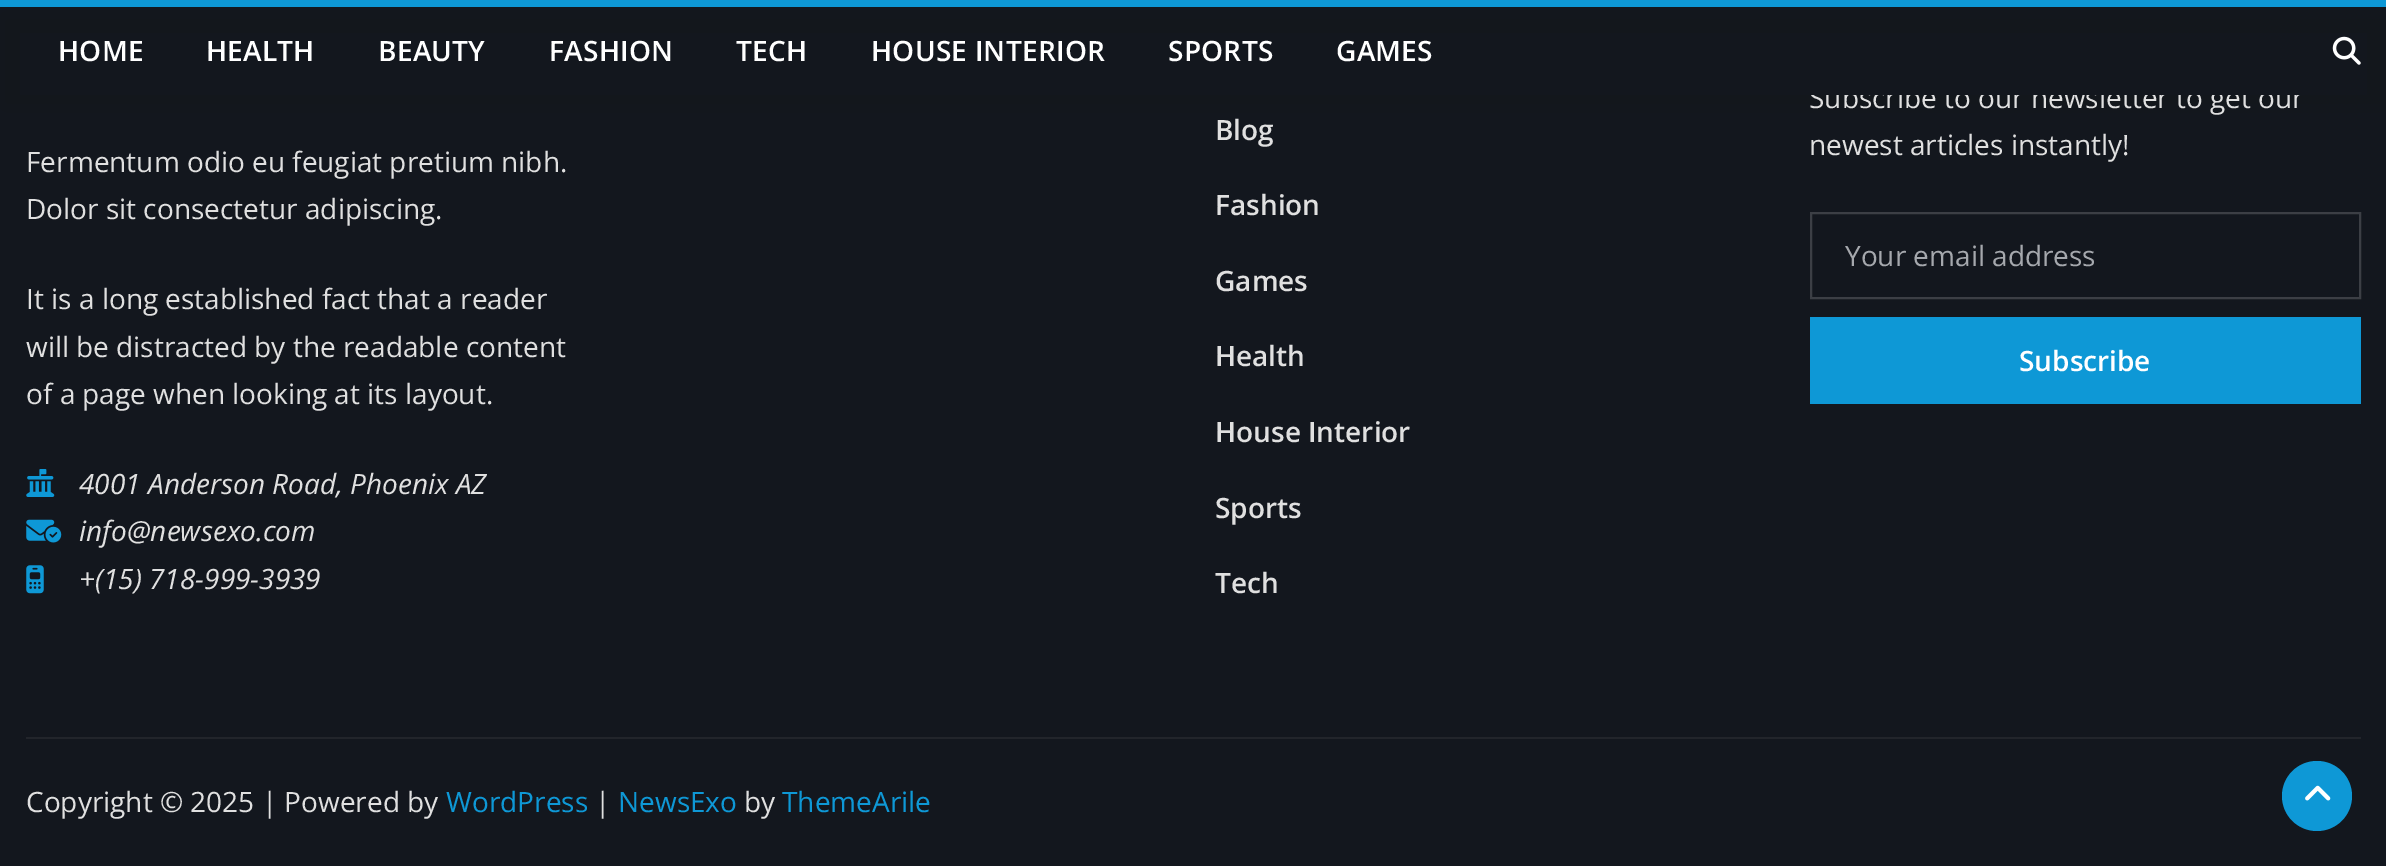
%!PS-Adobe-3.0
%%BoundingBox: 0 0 2386 866
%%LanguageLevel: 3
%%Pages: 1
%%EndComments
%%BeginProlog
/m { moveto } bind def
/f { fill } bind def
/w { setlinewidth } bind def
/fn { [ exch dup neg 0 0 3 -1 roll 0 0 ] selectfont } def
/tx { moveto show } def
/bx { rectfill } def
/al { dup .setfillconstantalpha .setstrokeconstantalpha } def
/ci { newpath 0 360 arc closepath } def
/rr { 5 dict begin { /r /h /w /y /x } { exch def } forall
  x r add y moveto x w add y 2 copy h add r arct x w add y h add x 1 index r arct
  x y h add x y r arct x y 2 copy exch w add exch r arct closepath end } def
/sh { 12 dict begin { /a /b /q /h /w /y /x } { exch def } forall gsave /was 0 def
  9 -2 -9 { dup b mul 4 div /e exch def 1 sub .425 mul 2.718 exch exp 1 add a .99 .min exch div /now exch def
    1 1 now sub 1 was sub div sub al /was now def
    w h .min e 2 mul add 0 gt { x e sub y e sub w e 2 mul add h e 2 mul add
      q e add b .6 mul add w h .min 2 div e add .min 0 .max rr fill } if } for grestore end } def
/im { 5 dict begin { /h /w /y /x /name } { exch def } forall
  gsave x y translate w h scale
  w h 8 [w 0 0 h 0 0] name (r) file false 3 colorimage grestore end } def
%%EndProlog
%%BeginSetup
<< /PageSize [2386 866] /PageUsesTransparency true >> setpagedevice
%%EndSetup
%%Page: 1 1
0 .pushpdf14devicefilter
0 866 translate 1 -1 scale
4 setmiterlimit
0.075 0.09 0.118 setrgbcolor
0 0 2386 866 bx
0 setgray
0 14 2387 95 0 17.5 0.1 sh
/OpenSans-Regular 28 fn
0.878 setgray
(Subscribe to our newsletter to get our) 1809 108 tx
0.075 0.09 0.118 setrgbcolor
20 33 2347 62 bx
0.055 0.596 0.839 setrgbcolor
0 0 2386 7 bx
/OpenSans-SemiBold 28 fn
1 setgray
58 61 m 0.25 0 (HOME) ashow
206 61 m 0.25 0 (HEALTH) ashow
378 61 m 0.25 0 (BEAUTY) ashow
549 61 m 0.25 0 (FASHION) ashow
736 61 m 0.25 0 (TECH) ashow
871 61 m 0.25 0 (HOUSE INTERIOR) ashow
1168 61 m 0.25 0 (SPORTS) ashow
1336 61 m 0.25 0 (GAMES) ashow
(image0.raw) 2332 36 29 29 im
/OpenSans-Regular 28 fn
0.878 setgray
(Fermentum odio eu feugiat pretium nibh.) 26 172 tx
(Dolor sit consectetur adipiscing.) 26 219 tx
(It is a long established fact that a reader) 26 309 tx
(will be distracted by the readable content) 26 357 tx
(of a page when looking at its layout.) 26 404 tx
(image1.raw) 26 469 29 28 im
/OpenSans-Italic 28 fn
(4001 Anderson Road, Phoenix AZ) 79 494 tx
(image2.raw) 26 519 36 24 im
(info@newsexo.com) 79 541 tx
(image3.raw) 26 565 18 29 im
(+\(15\) 718-999-3939) 79 589 tx
/OpenSans-SemiBold 28 fn
(Blog) 1215 140 tx
(Fashion) 1215 215 tx
(Games) 1215 291 tx
(Health) 1215 366 tx
(House Interior) 1215 442 tx
(Sports) 1215 518 tx
(Tech) 1215 593 tx
/OpenSans-Regular 28 fn
(newest articles instantly!) 1809 155 tx
0.235 0.247 0.271 setrgbcolor
2 w
1811 213 549 85 rectstroke
0.647 0.659 0.678 setrgbcolor
(Your email address) 1845 266 tx
0.055 0.596 0.839 setrgbcolor
1810 317 551 87 bx
/OpenSans-SemiBold 28 fn
1 setgray
(Subscribe) 2019 371 tx
0.133 0.145 0.169 setrgbcolor
26 737 2335 2 bx
/OpenSans-Regular 28 fn
0.878 setgray
(Copyright © 2025 | Powered by) 26 812 tx
0.055 0.596 0.839 setrgbcolor
(WordPress) 446 812 tx
0.878 setgray
(|) 595 812 tx
0.055 0.596 0.839 setrgbcolor
(NewsExo) 618 812 tx
0.878 setgray
(by) 744 812 tx
0.055 0.596 0.839 setrgbcolor
(ThemeArile) 782 812 tx
2317 796 35 ci f
(image4.raw) 2305 785 26 16 im
.poppdf14devicefilter showpage
%%EOF
